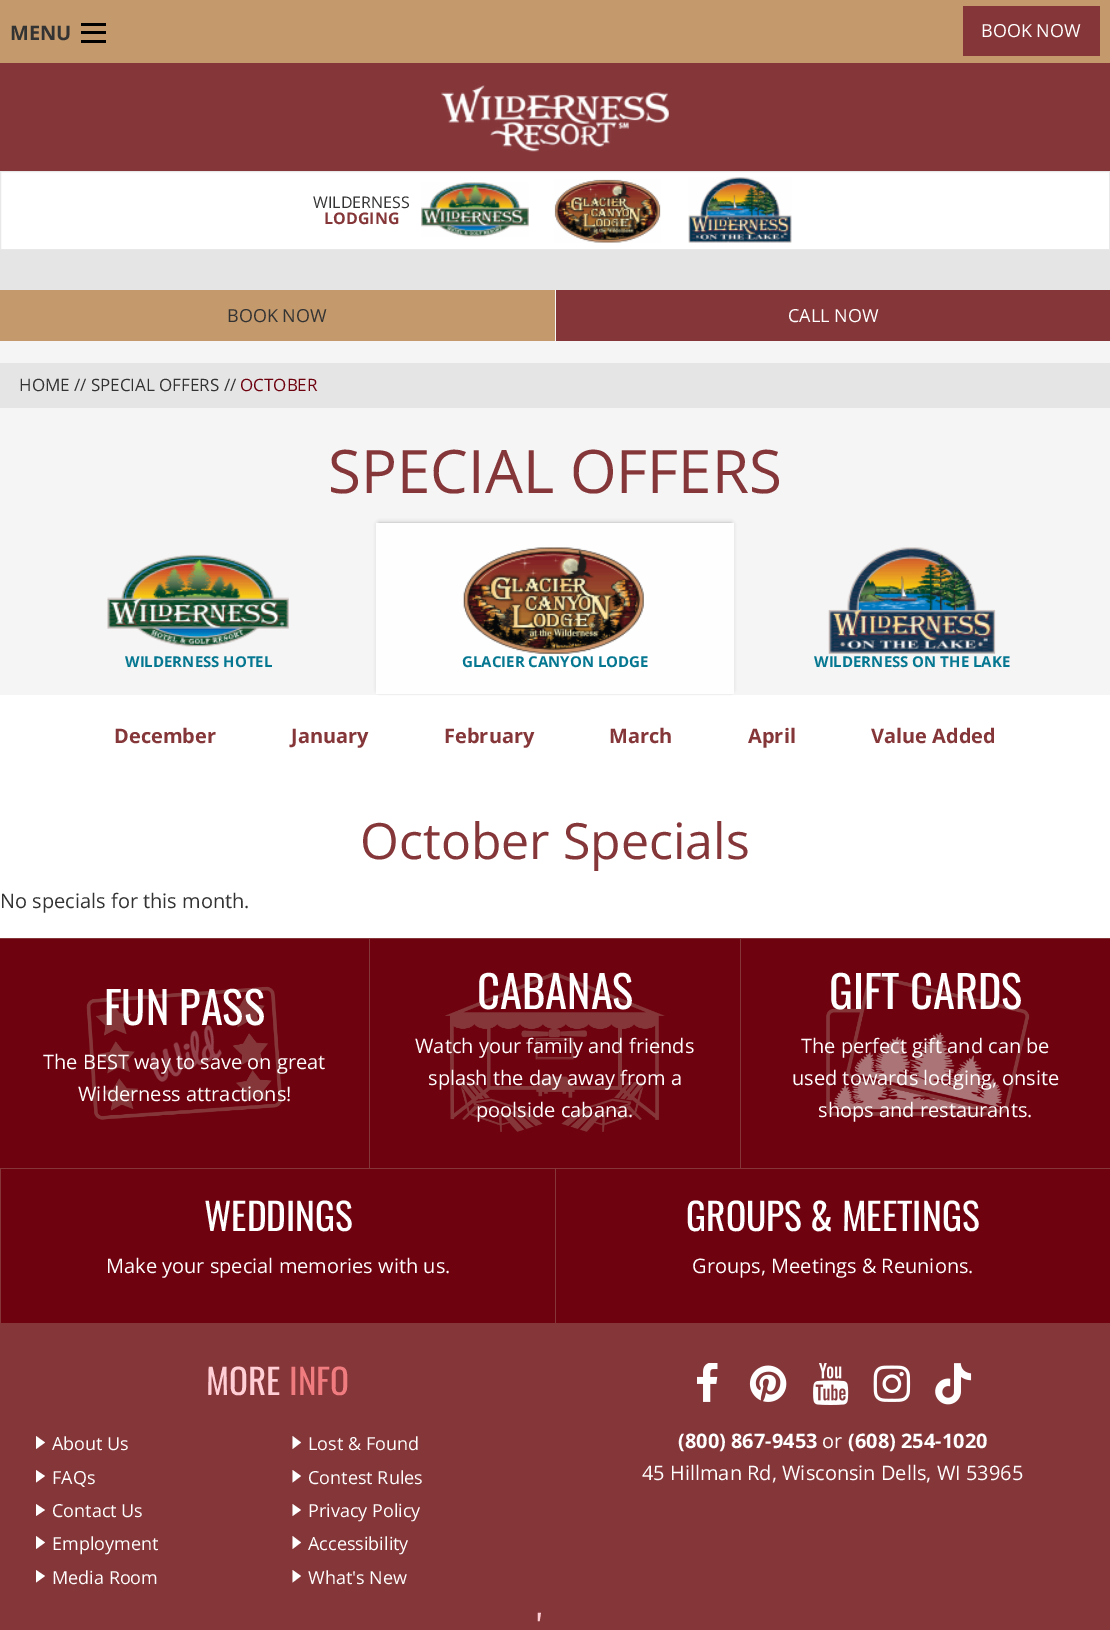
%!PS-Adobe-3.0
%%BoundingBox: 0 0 1110 1630
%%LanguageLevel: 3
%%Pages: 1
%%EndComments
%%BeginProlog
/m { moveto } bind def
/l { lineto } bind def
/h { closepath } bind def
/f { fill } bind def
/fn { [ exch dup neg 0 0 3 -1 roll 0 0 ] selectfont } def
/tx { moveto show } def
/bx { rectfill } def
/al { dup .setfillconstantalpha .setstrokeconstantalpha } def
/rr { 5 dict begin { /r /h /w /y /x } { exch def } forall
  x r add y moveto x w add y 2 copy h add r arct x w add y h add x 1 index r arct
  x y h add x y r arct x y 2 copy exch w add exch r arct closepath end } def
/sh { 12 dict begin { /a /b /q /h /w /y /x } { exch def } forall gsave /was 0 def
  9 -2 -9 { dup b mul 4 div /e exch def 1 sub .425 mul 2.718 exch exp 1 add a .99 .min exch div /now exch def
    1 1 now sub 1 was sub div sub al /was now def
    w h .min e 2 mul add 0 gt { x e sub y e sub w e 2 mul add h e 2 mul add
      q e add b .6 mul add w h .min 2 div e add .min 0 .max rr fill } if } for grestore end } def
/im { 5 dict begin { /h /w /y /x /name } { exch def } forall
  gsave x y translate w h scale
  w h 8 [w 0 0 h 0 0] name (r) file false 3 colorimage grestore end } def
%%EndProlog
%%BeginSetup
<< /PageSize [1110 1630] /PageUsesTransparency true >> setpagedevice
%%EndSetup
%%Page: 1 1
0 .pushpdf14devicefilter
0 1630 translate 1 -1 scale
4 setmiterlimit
1 setgray
0 0 1110 1630 bx
0.769 0.6 0.424 setrgbcolor
0 0 1110 63 bx
/OpenSans-Bold 20 fn
0.2 setgray
(MENU) 10 40 tx
0 setgray
81 40 25 3 bx
81 31 25 3 bx
81 23 25 3 bx
0.522 0.212 0.224 setrgbcolor
963 6 137 50 bx
/OpenSans-Regular 18 fn
0.996 setgray
(BOOK NOW) 981 37 tx
0.522 0.212 0.224 setrgbcolor
0 63 1110 108 bx
(image0.raw) 441 85 228 67 im
0.91 setgray
0.5 171.5 1109 78 rectstroke
/OpenSans-Regular 16 fn
0.2 setgray
(WILDERNESS) 313 208 tx
/OpenSans-Bold 16 fn
0.522 0.212 0.224 setrgbcolor
(LODGING) 324 224 tx
(image1.raw) 421 182 108 55 im
(image2.raw) 554 179 107 64 im
(image3.raw) 688 177 104 66 im
0.898 setgray
0 250 1110 40 bx
0.961 setgray
0 290 1110 405 bx
0.769 0.6 0.424 setrgbcolor
0 290 555 51 bx
/OpenSans-Regular 18 fn
0.2 setgray
(BOOK NOW) 227 322 tx
0.522 0.212 0.224 setrgbcolor
556 290 554 51 bx
0.996 setgray
(CALL NOW) 788 322 tx
0.898 setgray
0 363 1110 45 bx
/OpenSans-Regular 17 fn
0.2 setgray
(HOME // SPECIAL OFFERS //) 19 391 tx
0.431 0.008 0.059 setrgbcolor
(OCTOBER) 240 391 tx
/OpenSans-Regular 60 fn
0.522 0.212 0.224 setrgbcolor
(SPECIAL OFFERS) 328 493 tx
(image4.raw) 107 554 182 93 im
/OpenSans-Bold 15 fn
0.024 0.467 0.569 setrgbcolor
(WILDERNESS HOTEL) 125 667 tx
0.2 setgray
379 524 352 166 0 2.5 0.55 sh
0.996 setgray
376 523 358 171 bx
(image5.raw) 463 547 181 107 im
0.024 0.467 0.569 setrgbcolor
(GLACIER CANYON LODGE) 462 667 tx
(image6.raw) 828 547 168 107 im
(WILDERNESS ON THE LAKE) 814 667 tx
/OpenSans-Bold 20 fn
0.522 0.212 0.224 setrgbcolor
(December) 114 743 tx
(January) 291 743 tx
(February) 444 743 tx
(March) 609 743 tx
(April) 748 743 tx
(Value Added) 871 743 tx
/OpenSans-Regular 50 fn
(October Specials) 360 859 tx
/OpenSans-Regular 20 fn
0.2 setgray
(No specials for this month.) 0 908 tx
0.431 0.008 0.059 setrgbcolor
0 939 1110 384 bx
(image7.raw) 86 986 196 134 im
0.522 0.212 0.224 setrgbcolor
0 938 1110 1 bx
/Oswald-Regular 44.5 fn
0.996 setgray
(FUN PASS) 104 1025 tx
/OpenSans-Regular 20 fn
(The BEST way to save on great) 43 1069 tx
(Wilderness attractions!) 78 1101 tx
(image8.raw) 445 971 220 161 im
0.522 0.212 0.224 setrgbcolor
740 938 1 230 bx
369 938 1 230 bx
/Oswald-Regular 44.5 fn
0.996 setgray
(CABANAS) 477 1009 tx
/OpenSans-Regular 20 fn
(Watch your family and friends) 415 1053 tx
(splash the day away from a) 428 1085 tx
(poolside cabana.) 476 1117 tx
(image9.raw) 826 974 204 142 im
/Oswald-Regular 44.5 fn
(GIFT CARDS) 829 1009 tx
/OpenSans-Regular 20 fn
(The perfect gift and can be) 801 1053 tx
(used towards lodging, onsite) 792 1085 tx
(shops and restaurants.) 818 1117 tx
0.522 0.212 0.224 setrgbcolor
0 1168 1110 1 bx
0 1168 1 155 bx
/Oswald-Regular 37.5 fn
0.996 setgray
(WEDDINGS) 204 1231 tx
/OpenSans-Regular 20 fn
(Make your special memories with us.) 106 1273 tx
0.522 0.212 0.224 setrgbcolor
555 1168 1 155 bx
/Oswald-Regular 37.5 fn
0.996 setgray
(GROUPS & MEETINGS) 686 1231 tx
/OpenSans-Regular 20 fn
(Groups, Meetings & Reunions.) 692 1273 tx
0.522 0.212 0.224 setrgbcolor
0 1323 1110 307 bx
/Oswald-Regular 35 fn
1 0.812 0.835 setrgbcolor
(MORE) 206 1395 tx
0.945 0.486 0.502 setrgbcolor
(INFO) 289 1395 tx
0.996 setgray
36 1449 m 36 1436 l 45 1442.5 l h f
/OpenSans-Regular 18 fn
(About Us) 52 1450 tx
292.5 1449 m 292.5 1436 l 301 1442.5 l h f
(Lost & Found) 308 1450 tx
36 1482.5 m 36 1470 l 45 1476 l h f
(FAQs) 52 1484 tx
292.5 1482.5 m 292.5 1470 l 301 1476 l h f
(Contest Rules) 308 1484 tx
36 1516 m 36 1504 l 45 1510 l h f
(Contact Us) 52 1517 tx
292.5 1516 m 292.5 1504 l 301 1510 l h f
(Privacy Policy) 308 1517 tx
36 1549 m 36 1536 l 45 1542.5 l h f
(Employment) 52 1550 tx
292.5 1549 m 292.5 1536 l 301 1542.5 l h f
(Accessibility) 308 1550 tx
36 1582.5 m 36 1570 l 45 1576 l h f
(Media Room) 52 1584 tx
292.5 1582.5 m 292.5 1570 l 301 1576 l h f
(What's New) 308 1584 tx
(image10.raw) 697 1363 21 39 im
(image11.raw) 749 1365 38 37 im
(image12.raw) 813 1363 36 42 im
(image13.raw) 873 1365 38 37 im
(image14.raw) 935 1363 37 42 im
/OpenSans-Bold 20 fn
(\(800\) 867-9453) 678 1448 tx
/OpenSans-Regular 20 fn
(or) 822 1448 tx
/OpenSans-Bold 20 fn
(\(608\) 254-1020) 848 1448 tx
/OpenSans-Regular 20 fn
(45 Hillman Rd, Wisconsin Dells, WI 53965) 642 1480 tx
/Oswald-Regular 35 fn
1 0.812 0.835 setrgbcolor
(') 537 1641 tx
.poppdf14devicefilter showpage
%%EOF
